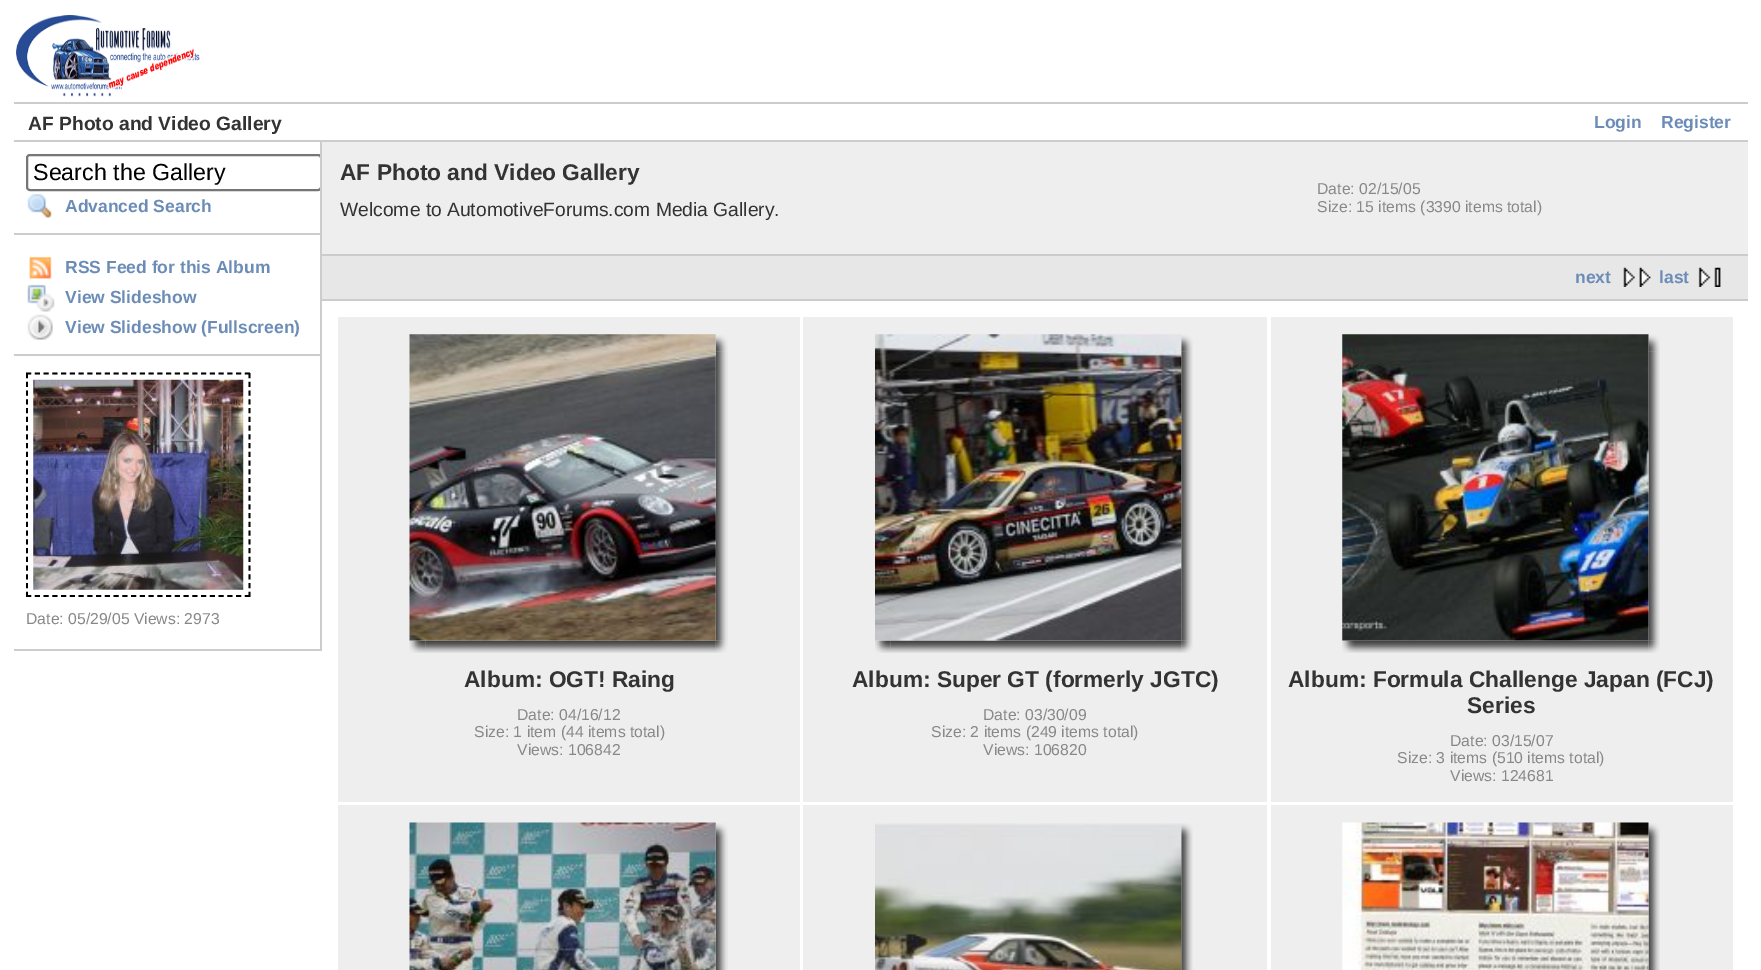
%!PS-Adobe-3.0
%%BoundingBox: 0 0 1761 970
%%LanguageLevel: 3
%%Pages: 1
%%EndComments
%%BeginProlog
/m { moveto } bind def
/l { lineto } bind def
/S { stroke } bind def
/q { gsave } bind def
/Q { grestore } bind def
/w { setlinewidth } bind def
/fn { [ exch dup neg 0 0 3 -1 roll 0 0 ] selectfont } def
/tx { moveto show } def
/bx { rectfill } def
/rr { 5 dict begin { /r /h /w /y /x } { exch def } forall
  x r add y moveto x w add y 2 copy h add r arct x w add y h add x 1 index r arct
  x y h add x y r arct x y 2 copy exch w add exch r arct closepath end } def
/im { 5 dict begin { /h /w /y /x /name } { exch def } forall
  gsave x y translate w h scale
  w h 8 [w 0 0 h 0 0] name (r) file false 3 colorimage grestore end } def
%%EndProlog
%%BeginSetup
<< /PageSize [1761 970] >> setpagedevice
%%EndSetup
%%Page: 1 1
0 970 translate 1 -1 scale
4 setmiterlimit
1 setgray
0 0 1761 970 bx
(image0.raw) 16 15 184 82 im
0.8 setgray
14 102 1734 2 bx
14 140 1734 2 bx
/LiberationSans-Bold 19.25 fn
0.2 setgray
(AF Photo and Video Gallery) 28 130 tx
/LiberationSans-Bold 17.5 fn
0.42 0.549 0.718 setrgbcolor
(Login) 1594 128 tx
(Register) 1661 128 tx
0.8 setgray
320 142 2 509 bx
14 233 306 2 bx
q
14 142 306 509 rectclip
0.463 setgray
2 w
27 155 294 35 3 rr S
Q
/LiberationSans-Regular 23.25 fn
0 setgray
(Search the Gallery) 33 180 tx
(image1.raw) 27 193 25 26 im
/LiberationSans-Bold 17.5 fn
0.42 0.549 0.718 setrgbcolor
(Advanced Search) 65 212 tx
0.8 setgray
14 354 306 2 bx
(image2.raw) 29 256 23 23 im
0.42 0.549 0.718 setrgbcolor
(RSS Feed for this Album) 65 273 tx
(image3.raw) 27 284 28 28 im
(View Slideshow) 65 303 tx
(image4.raw) 27 314 26 26 im
(View Slideshow \(Fullscreen\)) 65 333 tx
0.8 setgray
14 649 306 2 bx
0 setgray
1.8 w
[5.25 3.5] 0 setdash
26 373.5 m 250 373.5 l S
249.5 373 m 249.5 597 l S
26 596 m 250 596 l S
27 373 m 27 597 l S
(image5.raw) 33 379 211 211 im
/LiberationSans-Regular 15.75 fn
0.533 setgray
(Date: 05/29/05 Views: 2973) 26 624 tx
0.933 setgray
322 142 1426 112 bx
0.8 setgray
322 254 1426 2 bx
/LiberationSans-Bold 22.75 fn
0.2 setgray
(AF Photo and Video Gallery) 340 180 tx
/LiberationSans-Regular 19.25 fn
(Welcome to AutomotiveForums.com Media Gallery.) 340 216 tx
/LiberationSans-Regular 15.75 fn
0.533 setgray
(Date: 02/15/05) 1317 194 tx
(Size: 15 items \(3390 items total\)) 1317 212 tx
0.906 setgray
322 256 1426 43 bx
0.8 setgray
322 299 1426 2 bx
/LiberationSans-Bold 17.5 fn
0.42 0.549 0.718 setrgbcolor
(next) 1575 283 tx
(image6.raw) 1623 267 28 20 im
(last) 1659 283 tx
(image7.raw) 1698 267 23 20 im
0.933 setgray
338 317 462 485 bx
(image9.raw) 715 335 13 17 im
(image10.raw) 715 351 13 290 im
(image11.raw) 409 640 17 13 im
(image12.raw) 425 640 291 13 im
(image13.raw) 715 640 13 13 im
(image8.raw) 409 334 307 307 im
/LiberationSans-Bold 22.75 fn
0.2 setgray
(Album: OGT! Raing) 464 687 tx
/LiberationSans-Regular 15.75 fn
0.533 setgray
(Date: 04/16/12) 517 720 tx
(Size: 1 item \(44 items total\)) 474 737 tx
(Views: 106842) 517 755 tx
0.933 setgray
803 317 464 485 bx
(image15.raw) 1181 335 12 17 im
(image16.raw) 1181 351 12 290 im
(image17.raw) 875 640 16 13 im
(image18.raw) 890 640 292 13 im
(image19.raw) 1181 640 12 13 im
(image14.raw) 875 334 307 307 im
/LiberationSans-Bold 22.75 fn
0.2 setgray
(Album: Super GT \(formerly JGTC\)) 852 687 tx
/LiberationSans-Regular 15.75 fn
0.533 setgray
(Date: 03/30/09) 983 720 tx
(Size: 2 items \(249 items total\)) 931 737 tx
(Views: 106820) 983 755 tx
0.933 setgray
1271 317 462 485 bx
(image21.raw) 1648 335 12 17 im
(image22.raw) 1648 351 12 290 im
(image23.raw) 1342 640 16 13 im
(image24.raw) 1358 640 291 13 im
(image25.raw) 1648 640 12 13 im
(image20.raw) 1342 334 307 307 im
/LiberationSans-Bold 22.75 fn
0.2 setgray
(Album: Formula Challenge Japan \(FCJ\)) 1288 687 tx
(Series) 1467 713 tx
/LiberationSans-Regular 15.75 fn
0.533 setgray
(Date: 03/15/07) 1450 746 tx
(Size: 3 items \(510 items total\)) 1397 763 tx
(Views: 124681) 1450 781 tx
0.933 setgray
338 805 462 165 bx
(image27.raw) 715 823 13 17 im
(image28.raw) 715 840 13 130 im
(image26.raw) 409 822 307 148 im
803 805 464 165 bx
(image30.raw) 1181 823 12 17 im
(image31.raw) 1181 840 12 130 im
(image29.raw) 875 823 307 147 im
1271 805 462 165 bx
(image33.raw) 1648 823 12 17 im
(image34.raw) 1648 840 12 130 im
(image32.raw) 1342 822 307 148 im
showpage
%%EOF
